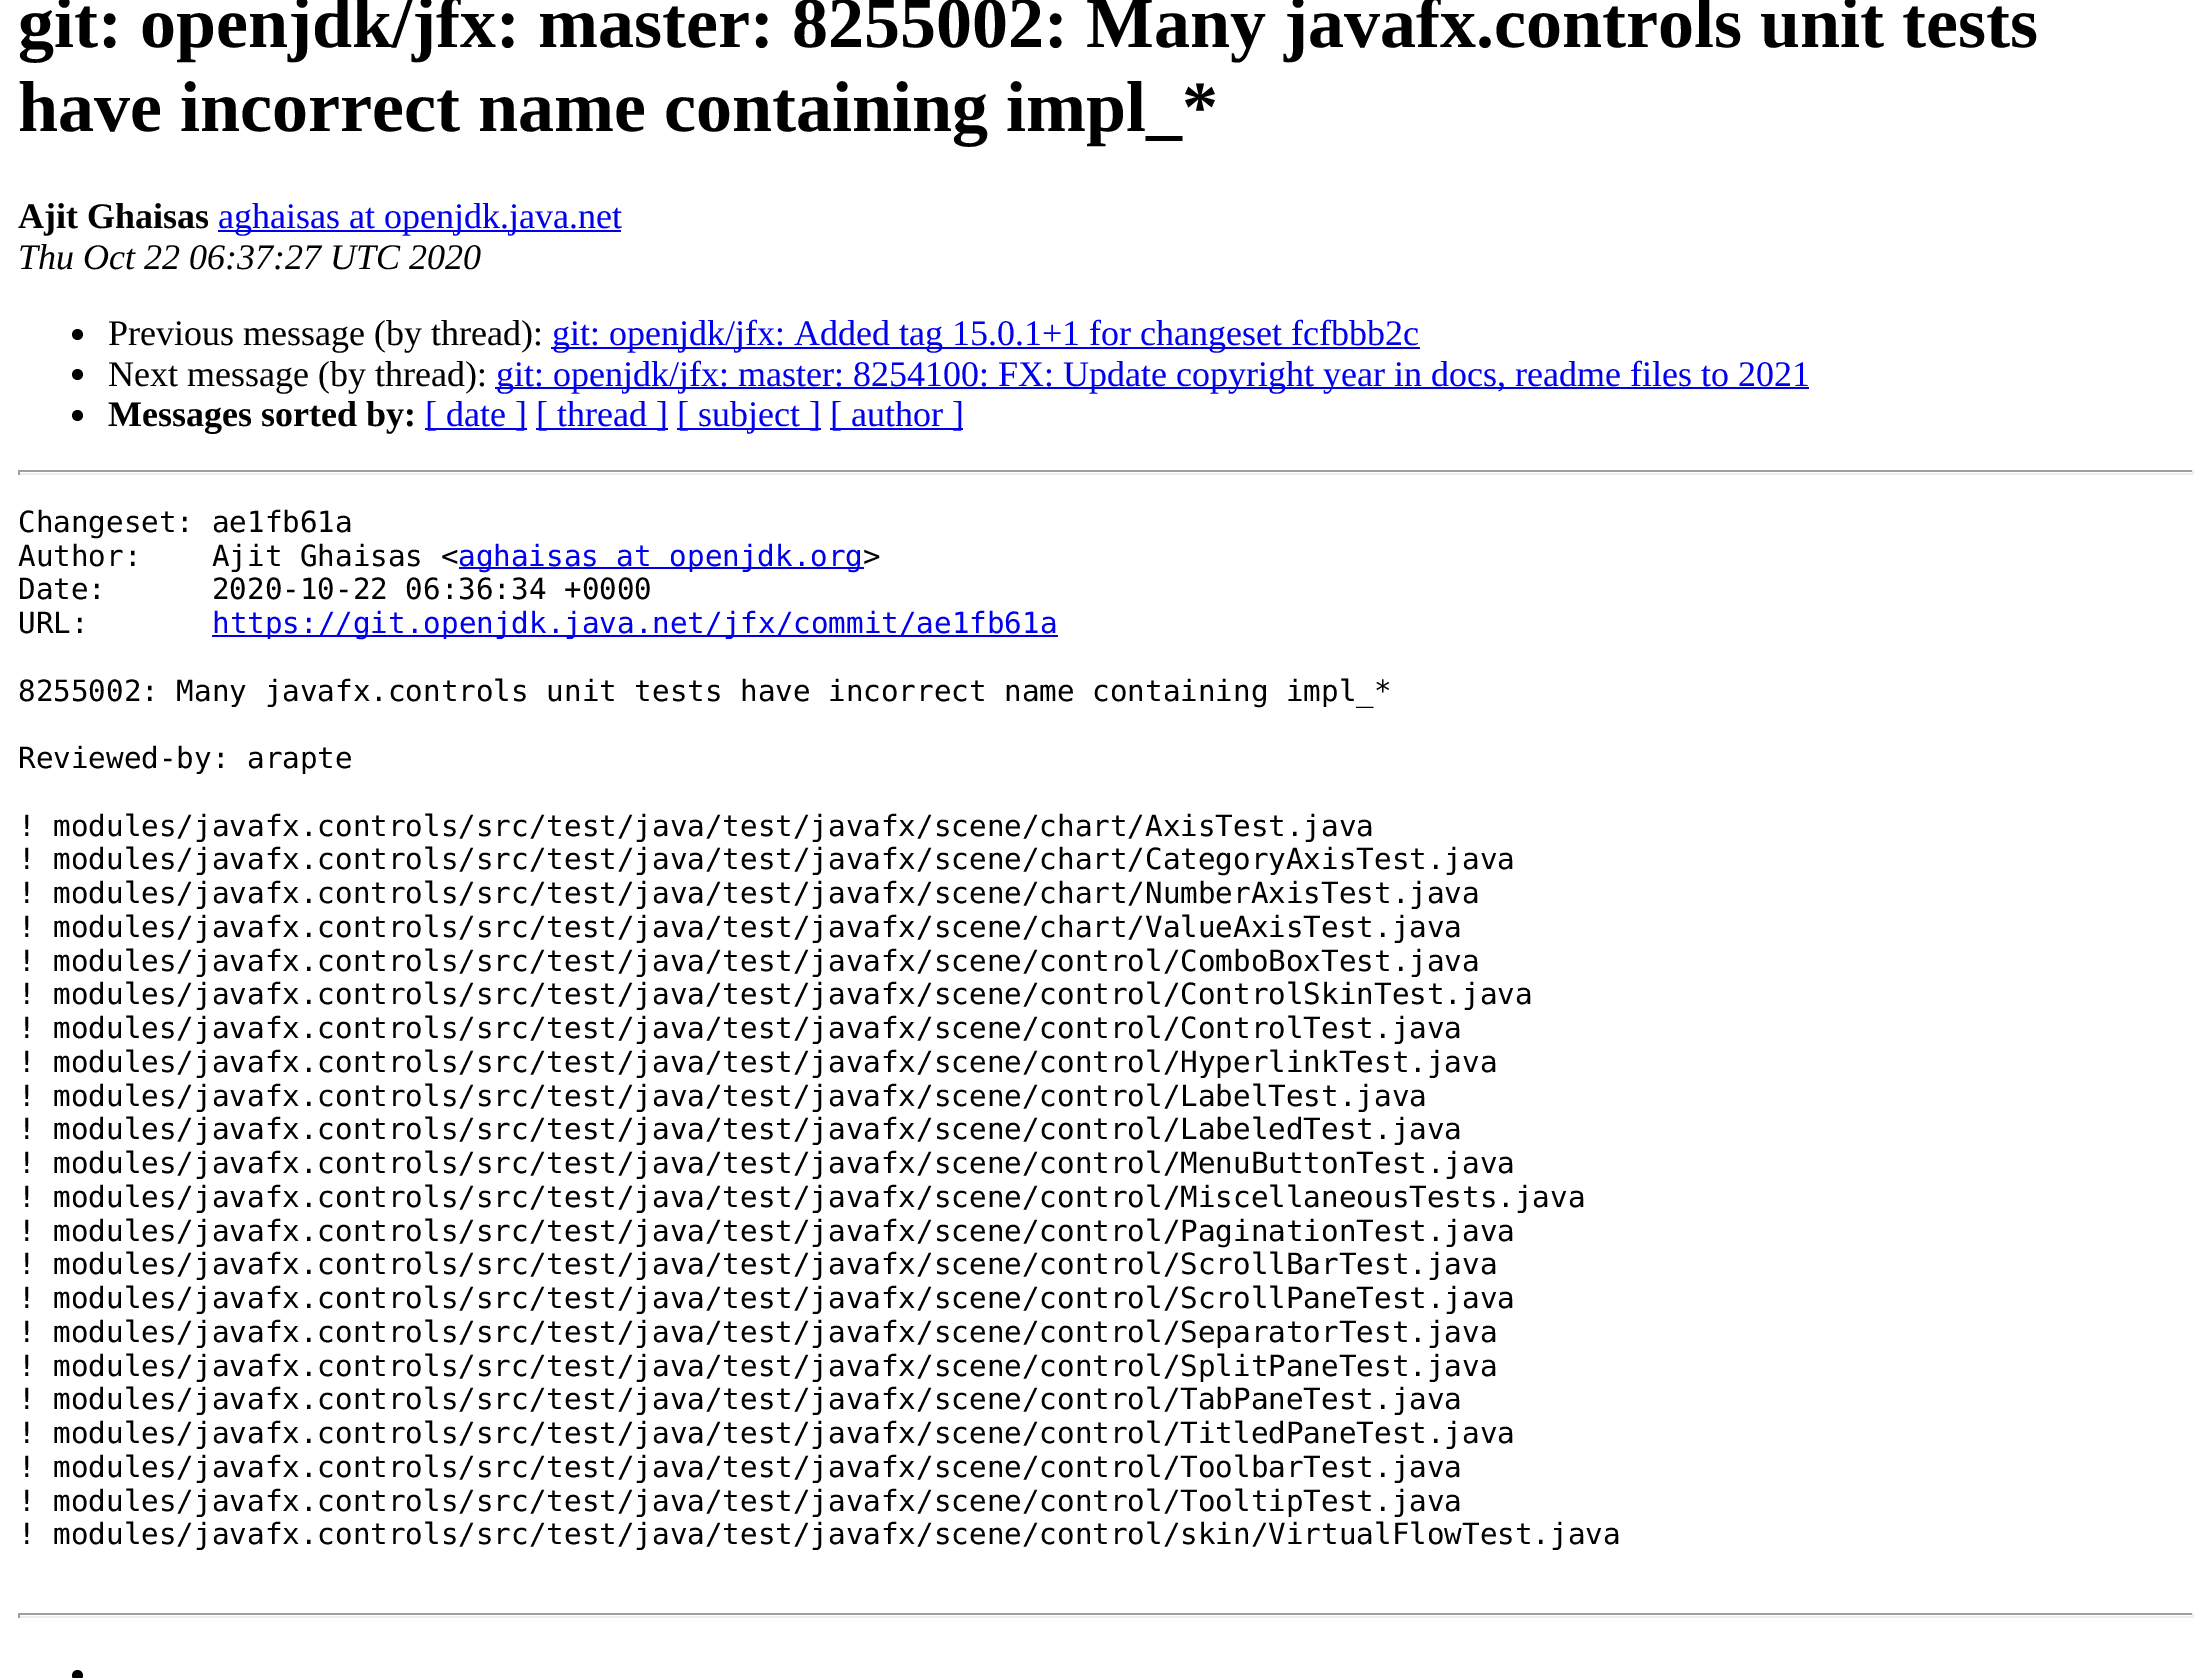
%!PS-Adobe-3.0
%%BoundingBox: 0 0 2211 1678
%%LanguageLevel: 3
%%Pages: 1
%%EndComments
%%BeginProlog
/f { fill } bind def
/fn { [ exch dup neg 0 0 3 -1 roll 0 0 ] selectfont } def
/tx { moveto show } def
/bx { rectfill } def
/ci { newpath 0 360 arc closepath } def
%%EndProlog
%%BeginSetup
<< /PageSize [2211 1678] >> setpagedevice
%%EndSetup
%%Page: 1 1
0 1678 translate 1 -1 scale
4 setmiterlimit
1 setgray
0 0 2211 1678 bx
/LiberationSerif-Bold 72 fn
0 setgray
(git: openjdk/jfx: master: 8255002: Many javafx.controls unit tests) 18 47 tx
(have incorrect name containing impl_*) 18 131 tx
/LiberationSerif-Bold 36 fn
(Ajit Ghaisas) 18 228 tx
0 0 0.933 setrgbcolor
218 230 403 2 bx
/LiberationSerif-Regular 36 fn
(aghaisas at openjdk.java.net) 218 228 tx
/LiberationSerif-Italic 36 fn
0 setgray
(Thu Oct 22 06:37:27 UTC 2020) 18 269 tx
77.5 334.5 5.5 ci f
/LiberationSerif-Regular 36 fn
(Previous message \(by thread\):) 108 345 tx
0 0 0.933 setrgbcolor
551 347 869 2 bx
(git: openjdk/jfx: Added tag 15.0.1+1 for changeset fcfbbb2c) 552 345 tx
0 setgray
77.5 374.5 5.5 ci f
(Next message \(by thread\):) 108 386 tx
0 0 0.933 setrgbcolor
495 387 1314 2 bx
(git: openjdk/jfx: master: 8254100: FX: Update copyright year in docs, readme files to 2021) 496 386 tx
0 setgray
77.5 415.5 5.5 ci f
/LiberationSerif-Bold 36 fn
(Messages sorted by:) 108 426 tx
0 0 0.933 setrgbcolor
425 428 102 2 bx
/LiberationSerif-Regular 36 fn
([ date ]) 425 426 tx
536 428 132 2 bx
([ thread ]) 536 426 tx
677 428 144 2 bx
([ subject ]) 677 426 tx
830 428 133 2 bx
([ author ]) 830 426 tx
0.624 setgray
18 470 2176 2 bx
0.933 setgray
2192 470 2 5 bx
18 473 2176 2 bx
0.624 setgray
18 470 2 5 bx
/DejaVuSansMono-Regular 29.25 fn
0 setgray
(Changeset: ae1fb61a) 18 532 tx
(Author:    Ajit Ghaisas <) 18 566 tx
0 0 0.933 setrgbcolor
459 567 405 2 bx
(aghaisas at openjdk.org) 458 566 tx
0 setgray
(>) 863 566 tx
(Date:      2020-10-22 06:36:34 +0000) 18 599 tx
(URL:) 18 633 tx
0 0 0.933 setrgbcolor
212 635 846 2 bx
(https://git.openjdk.java.net/jfx/commit/ae1fb61a) 212 633 tx
0 setgray
(8255002: Many javafx.controls unit tests have incorrect name containing impl_*) 18 701 tx
(Reviewed-by: arapte) 18 768 tx
(! modules/javafx.controls/src/test/java/test/javafx/scene/chart/AxisTest.java) 18 836 tx
(! modules/javafx.controls/src/test/java/test/javafx/scene/chart/CategoryAxisTest.java) 18 869 tx
(! modules/javafx.controls/src/test/java/test/javafx/scene/chart/NumberAxisTest.java) 18 903 tx
(! modules/javafx.controls/src/test/java/test/javafx/scene/chart/ValueAxisTest.java) 18 937 tx
(! modules/javafx.controls/src/test/java/test/javafx/scene/control/ComboBoxTest.java) 18 971 tx
(! modules/javafx.controls/src/test/java/test/javafx/scene/control/ControlSkinTest.java) 18 1004 tx
(! modules/javafx.controls/src/test/java/test/javafx/scene/control/ControlTest.java) 18 1038 tx
(! modules/javafx.controls/src/test/java/test/javafx/scene/control/HyperlinkTest.java) 18 1072 tx
(! modules/javafx.controls/src/test/java/test/javafx/scene/control/LabelTest.java) 18 1106 tx
(! modules/javafx.controls/src/test/java/test/javafx/scene/control/LabeledTest.java) 18 1139 tx
(! modules/javafx.controls/src/test/java/test/javafx/scene/control/MenuButtonTest.java) 18 1173 tx
(! modules/javafx.controls/src/test/java/test/javafx/scene/control/MiscellaneousTests.java) 18 1207 tx
(! modules/javafx.controls/src/test/java/test/javafx/scene/control/PaginationTest.java) 18 1241 tx
(! modules/javafx.controls/src/test/java/test/javafx/scene/control/ScrollBarTest.java) 18 1274 tx
(! modules/javafx.controls/src/test/java/test/javafx/scene/control/ScrollPaneTest.java) 18 1308 tx
(! modules/javafx.controls/src/test/java/test/javafx/scene/control/SeparatorTest.java) 18 1342 tx
(! modules/javafx.controls/src/test/java/test/javafx/scene/control/SplitPaneTest.java) 18 1376 tx
(! modules/javafx.controls/src/test/java/test/javafx/scene/control/TabPaneTest.java) 18 1409 tx
(! modules/javafx.controls/src/test/java/test/javafx/scene/control/TitledPaneTest.java) 18 1443 tx
(! modules/javafx.controls/src/test/java/test/javafx/scene/control/ToolbarTest.java) 18 1477 tx
(! modules/javafx.controls/src/test/java/test/javafx/scene/control/TooltipTest.java) 18 1511 tx
(! modules/javafx.controls/src/test/java/test/javafx/scene/control/skin/VirtualFlowTest.java) 18 1544 tx
0.624 setgray
18 1613 2176 2 bx
0.933 setgray
2192 1613 2 5 bx
18 1616 2176 2 bx
0.624 setgray
18 1613 2 5 bx
0 setgray
77.5 1675.5 5.5 ci f
showpage
%%EOF
